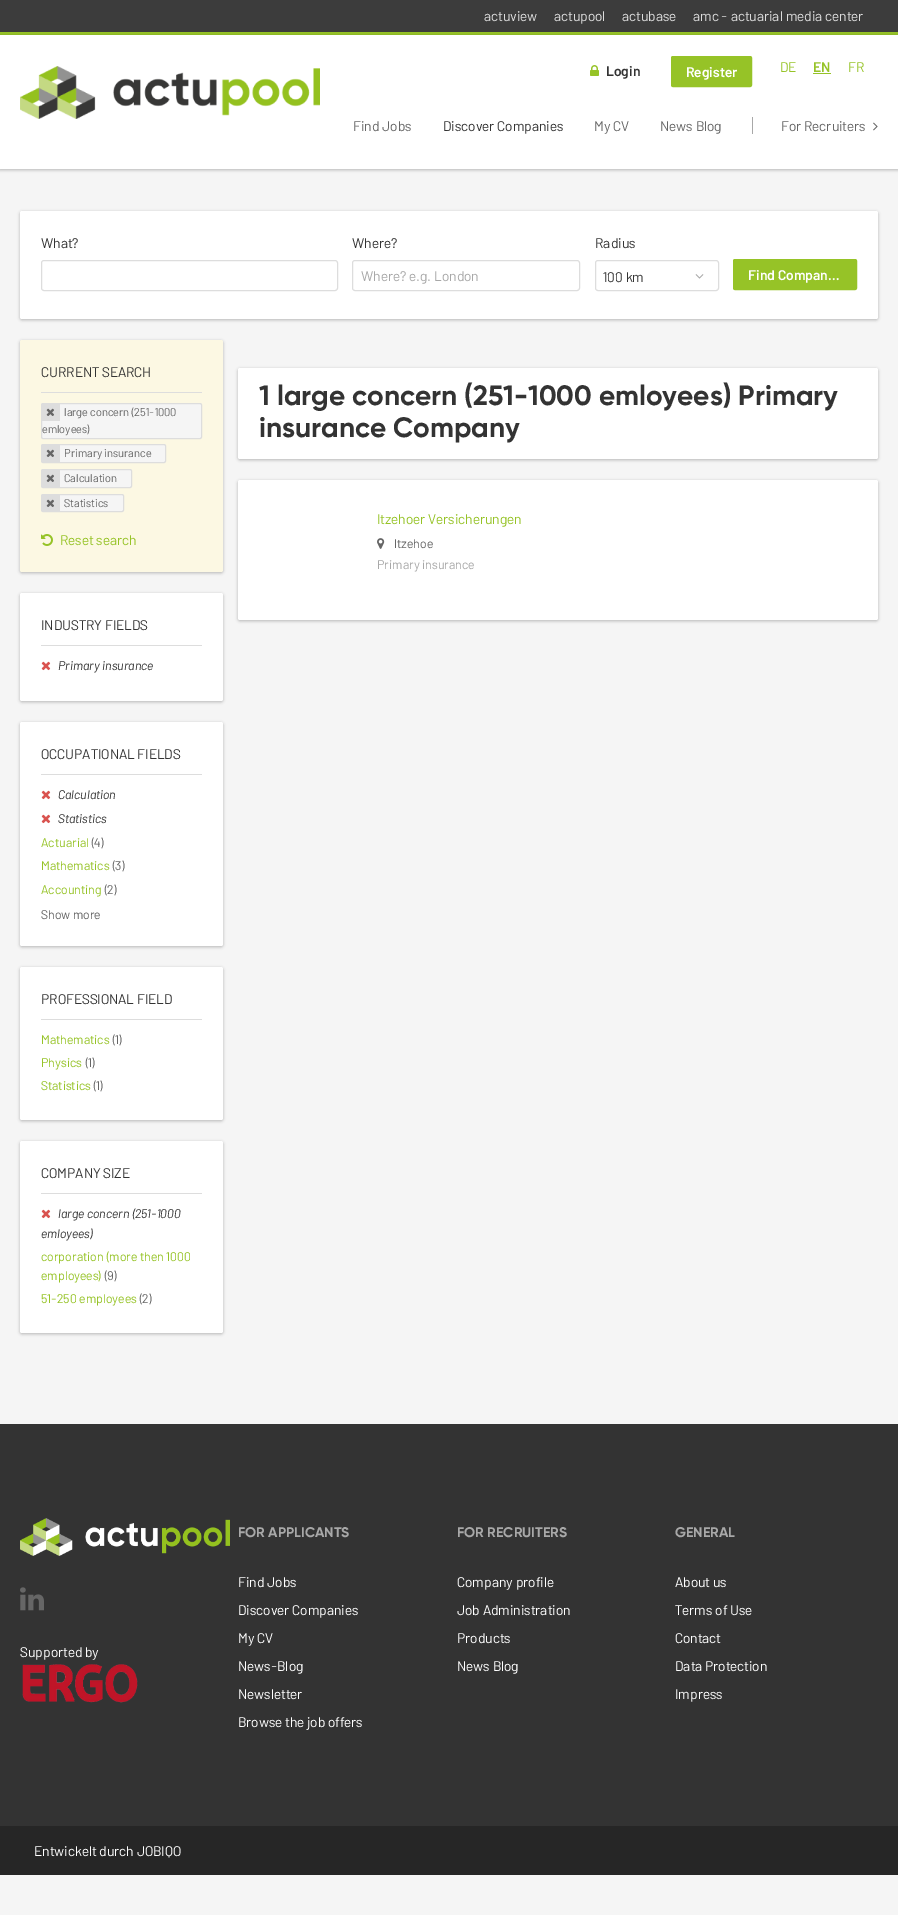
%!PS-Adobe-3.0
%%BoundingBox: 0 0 898 1915
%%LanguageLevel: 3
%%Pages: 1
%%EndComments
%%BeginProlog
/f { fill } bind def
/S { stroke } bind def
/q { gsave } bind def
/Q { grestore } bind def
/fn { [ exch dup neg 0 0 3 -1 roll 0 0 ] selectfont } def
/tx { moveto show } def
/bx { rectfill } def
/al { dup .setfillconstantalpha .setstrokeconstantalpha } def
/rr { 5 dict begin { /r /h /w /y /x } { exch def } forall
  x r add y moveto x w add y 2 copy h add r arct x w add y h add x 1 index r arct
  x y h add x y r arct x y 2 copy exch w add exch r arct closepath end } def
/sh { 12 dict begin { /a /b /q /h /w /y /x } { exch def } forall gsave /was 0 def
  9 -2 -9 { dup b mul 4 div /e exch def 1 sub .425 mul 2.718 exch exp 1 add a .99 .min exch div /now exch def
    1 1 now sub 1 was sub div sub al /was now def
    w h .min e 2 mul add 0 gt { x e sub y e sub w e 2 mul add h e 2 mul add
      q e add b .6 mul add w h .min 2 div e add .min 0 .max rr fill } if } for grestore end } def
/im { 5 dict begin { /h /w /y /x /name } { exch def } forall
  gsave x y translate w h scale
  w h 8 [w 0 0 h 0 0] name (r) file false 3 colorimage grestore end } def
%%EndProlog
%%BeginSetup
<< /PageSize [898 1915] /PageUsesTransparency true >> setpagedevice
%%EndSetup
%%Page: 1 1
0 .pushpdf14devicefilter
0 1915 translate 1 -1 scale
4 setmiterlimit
0.961 setgray
0 0 898 1915 bx
0.235 setgray
0 0 898 32 bx
/Barlow-Regular 14 fn
0.867 setgray
(actuview) 484 21 tx
(actupool) 554 21 tx
(actubase) 622 21 tx
(amc - actuarial media center) 693 21 tx
0.588 0.765 0.153 setrgbcolor
0 32 898 3 bx
0 setgray
0 36 898 134 0 1.5 0.25 sh
1 setgray
0 35 898 134 bx
(image0.raw) 20 66 300 53 im
(image1.raw) 590 65 9 11 im
/Barlow-SemiBold 14 fn
0.2 setgray
(Login) 606 76 tx
0.588 0.765 0.153 setrgbcolor
671.5 56.5 80 30 1.5 rr q f Q
S
1 setgray
(Register) 686 77 tx
/Barlow-Regular 14 fn
0.588 0.765 0.153 setrgbcolor
(DE) 780 72 tx
/Barlow-SemiBold 14 fn
(EN) 813 72 tx
813 73 18 1 bx
/Barlow-Regular 14 fn
(FR) 848 72 tx
0.4 setgray
(Find Jobs) 353 131 tx
0.2 setgray
(Discover Companies) 443 131 tx
0.4 setgray
(My CV) 594 131 tx
(News Blog) 660 131 tx
0.659 setgray
752 117 1 17 bx
0.4 setgray
(For Recruiters) 781 131 tx
(image2.raw) 873 122 5 9 im
0 setgray
20 212 858 108 2 1.5 0.25 sh
1 setgray
20 211 858 108 2 rr f
0.2 setgray
(What?) 41 248 tx
0.867 setgray
41.5 260.5 296 30 2.5 rr S
0.2 setgray
(Where?) 352 248 tx
0.867 setgray
352.5 260.5 227 30 2.5 rr S
0.659 setgray
(Where? e.g. London) 361 281 tx
0.2 setgray
(Radius) 595 248 tx
0.867 setgray
595.5 260.5 123 30 2.5 rr S
0.2 setgray
(100 km) 603 282 tx
(image3.raw) 695 274 9 5 im
0.588 0.765 0.153 setrgbcolor
733.5 259.5 123 30 1.5 rr q f Q
S
/Barlow-SemiBold 14 fn
1 setgray
(Find Compan…) 748 280 tx
0 setgray
20 341 203 232 2 1.5 0.25 sh
0.988 0.973 0.89 setrgbcolor
20 340 203 232 2 rr f
0.867 setgray
41 392 161 1 bx
/Barlow-Regular 14 fn
0.2 setgray
(CURRENT SEARCH) 41 377 tx
0.961 setgray
41.5 403.5 160 35 1.5 rr q f Q
0.867 setgray
S
42 404 18 17 bx
(image4.raw) 46 408 8 8 im
/Barlow-Regular 11.25 fn
0.4 setgray
(large concern \(251-1000) 64 416 tx
(emloyees\)) 42 433 tx
0.961 setgray
41.5 444.5 124 18 1.5 rr q f Q
0.867 setgray
S
42 445 18 17 bx
(image4.raw) 46 449 8 8 im
0.4 setgray
(Primary insurance) 64 457 tx
0.961 setgray
41.5 469.5 90 18 1.5 rr q f Q
0.867 setgray
S
42 470 18 17 bx
(image4.raw) 46 474 8 8 im
0.4 setgray
(Calculation) 64 482 tx
0.961 setgray
41.5 494.5 82 17 1.5 rr q f Q
0.867 setgray
S
42 495 18 16 bx
(image4.raw) 46 499 8 8 im
0.4 setgray
(Statistics) 64 507 tx
(image5.raw) 41 534 12 12 im
/Barlow-Regular 14 fn
0.588 0.765 0.153 setrgbcolor
(Reset search) 60 545 tx
0 setgray
20 594 203 108 2 1.5 0.25 sh
1 setgray
20 593 203 108 2 rr f
0.867 setgray
41 645 161 1 bx
0.2 setgray
(INDUSTRY FIELDS) 41 630 tx
(image6.raw) 41 661 10 10 im
/Barlow-Italic 12.6 fn
(Primary insurance) 58 670 tx
0 setgray
20 723 203 224 2 1.5 0.25 sh
1 setgray
20 722 203 224 2 rr f
0.867 setgray
41 774 161 1 bx
/Barlow-Regular 14 fn
0.2 setgray
(OCCUPATIONAL FIELDS) 41 759 tx
(image6.raw) 41 790 10 10 im
/Barlow-Italic 12.6 fn
(Calculation) 58 799 tx
(image6.raw) 41 814 10 10 im
(Statistics) 58 823 tx
/Barlow-Regular 12.6 fn
0.588 0.765 0.153 setrgbcolor
(Actuarial) 41 847 tx
0.4 setgray
(\(4\)) 91 847 tx
0.588 0.765 0.153 setrgbcolor
(Mathematics) 41 870 tx
0.4 setgray
(\(3\)) 112 870 tx
0.588 0.765 0.153 setrgbcolor
(Accounting) 41 894 tx
0.4 setgray
(\(2\)) 104 894 tx
(Show more) 41 919 tx
0 setgray
20 968 203 153 2 1.5 0.25 sh
1 setgray
20 967 203 153 2 rr f
0.867 setgray
41 1019 161 1 bx
/Barlow-Regular 14 fn
0.2 setgray
(PROFESSIONAL FIELD) 41 1004 tx
/Barlow-Regular 12.6 fn
0.588 0.765 0.153 setrgbcolor
(Mathematics) 41 1044 tx
0.4 setgray
(\(1\)) 112 1044 tx
0.588 0.765 0.153 setrgbcolor
(Physics) 41 1067 tx
0.4 setgray
(\(1\)) 85 1067 tx
0.588 0.765 0.153 setrgbcolor
(Statistics) 41 1090 tx
0.4 setgray
(\(1\)) 93 1090 tx
0 setgray
20 1142 203 192 2 1.5 0.25 sh
1 setgray
20 1141 203 192 2 rr f
0.867 setgray
41 1193 161 1 bx
/Barlow-Regular 14 fn
0.2 setgray
(COMPANY SIZE) 41 1178 tx
(image6.raw) 41 1209 10 10 im
/Barlow-Italic 12.6 fn
(large concern \(251-1000) 58 1218 tx
(emloyees\)) 41 1238 tx
/Barlow-Regular 12.6 fn
0.588 0.765 0.153 setrgbcolor
(corporation \(more then 1000) 41 1261 tx
(employees\)) 41 1280 tx
0.4 setgray
(\(9\)) 104 1280 tx
0.588 0.765 0.153 setrgbcolor
(51-250 employees) 41 1303 tx
0.4 setgray
(\(2\)) 139 1303 tx
0 setgray
238 369 640 91 2 1.5 0.25 sh
1 setgray
238 368 640 91 2 rr f
/Gilroy-Regular 28 fn
0.2 setgray
(1 large concern \(251-1000 emloyees\) Primary) 259 405 tx
(insurance Company) 259 437 tx
0 setgray
238 481 640 140 2 1.5 0.25 sh
1 setgray
238 480 640 140 2 rr f
/Barlow-Regular 14 fn
0.588 0.765 0.153 setrgbcolor
(Itzehoer Versicherungen) 377 524 tx
(image7.raw) 377 538 8 11 im
/Barlow-Regular 12.6 fn
0.4 setgray
(Itzehoe) 394 548 tx
0.659 setgray
(Primary insurance) 377 569 tx
0.2 setgray
0 1424 898 402 bx
(image8.raw) 20 1518 210 38 im
(image9.raw) 20 1587 24 24 im
/Barlow-Regular 14 fn
1 setgray
(Supported by) 20 1657 tx
(image10.raw) 22 1664 116 39 im
/Gilroy-Regular 14 fn
0.659 setgray
(FOR APPLICANTS) 238 1537 tx
/Barlow-Regular 14 fn
1 setgray
(Find Jobs) 238 1587 tx
(Discover Companies) 238 1615 tx
(My CV) 238 1643 tx
(News-Blog) 238 1671 tx
(Newsletter) 238 1699 tx
(Browse the job offers) 238 1727 tx
/Gilroy-Regular 14 fn
0.659 setgray
(FOR RECRUITERS) 457 1537 tx
/Barlow-Regular 14 fn
1 setgray
(Company profile) 457 1587 tx
(Job Administration) 457 1615 tx
(Products) 457 1643 tx
(News Blog) 457 1671 tx
/Gilroy-Regular 14 fn
0.659 setgray
(GENERAL) 675 1537 tx
/Barlow-Regular 14 fn
1 setgray
(About us) 675 1587 tx
(Terms of Use) 675 1615 tx
(Contact) 675 1643 tx
(Data Protection) 675 1671 tx
(Impress) 675 1699 tx
0.149 setgray
0 1826 898 49 bx
1 setgray
(Entwickelt durch JOBIQO) 34 1856 tx
.poppdf14devicefilter showpage
%%EOF
